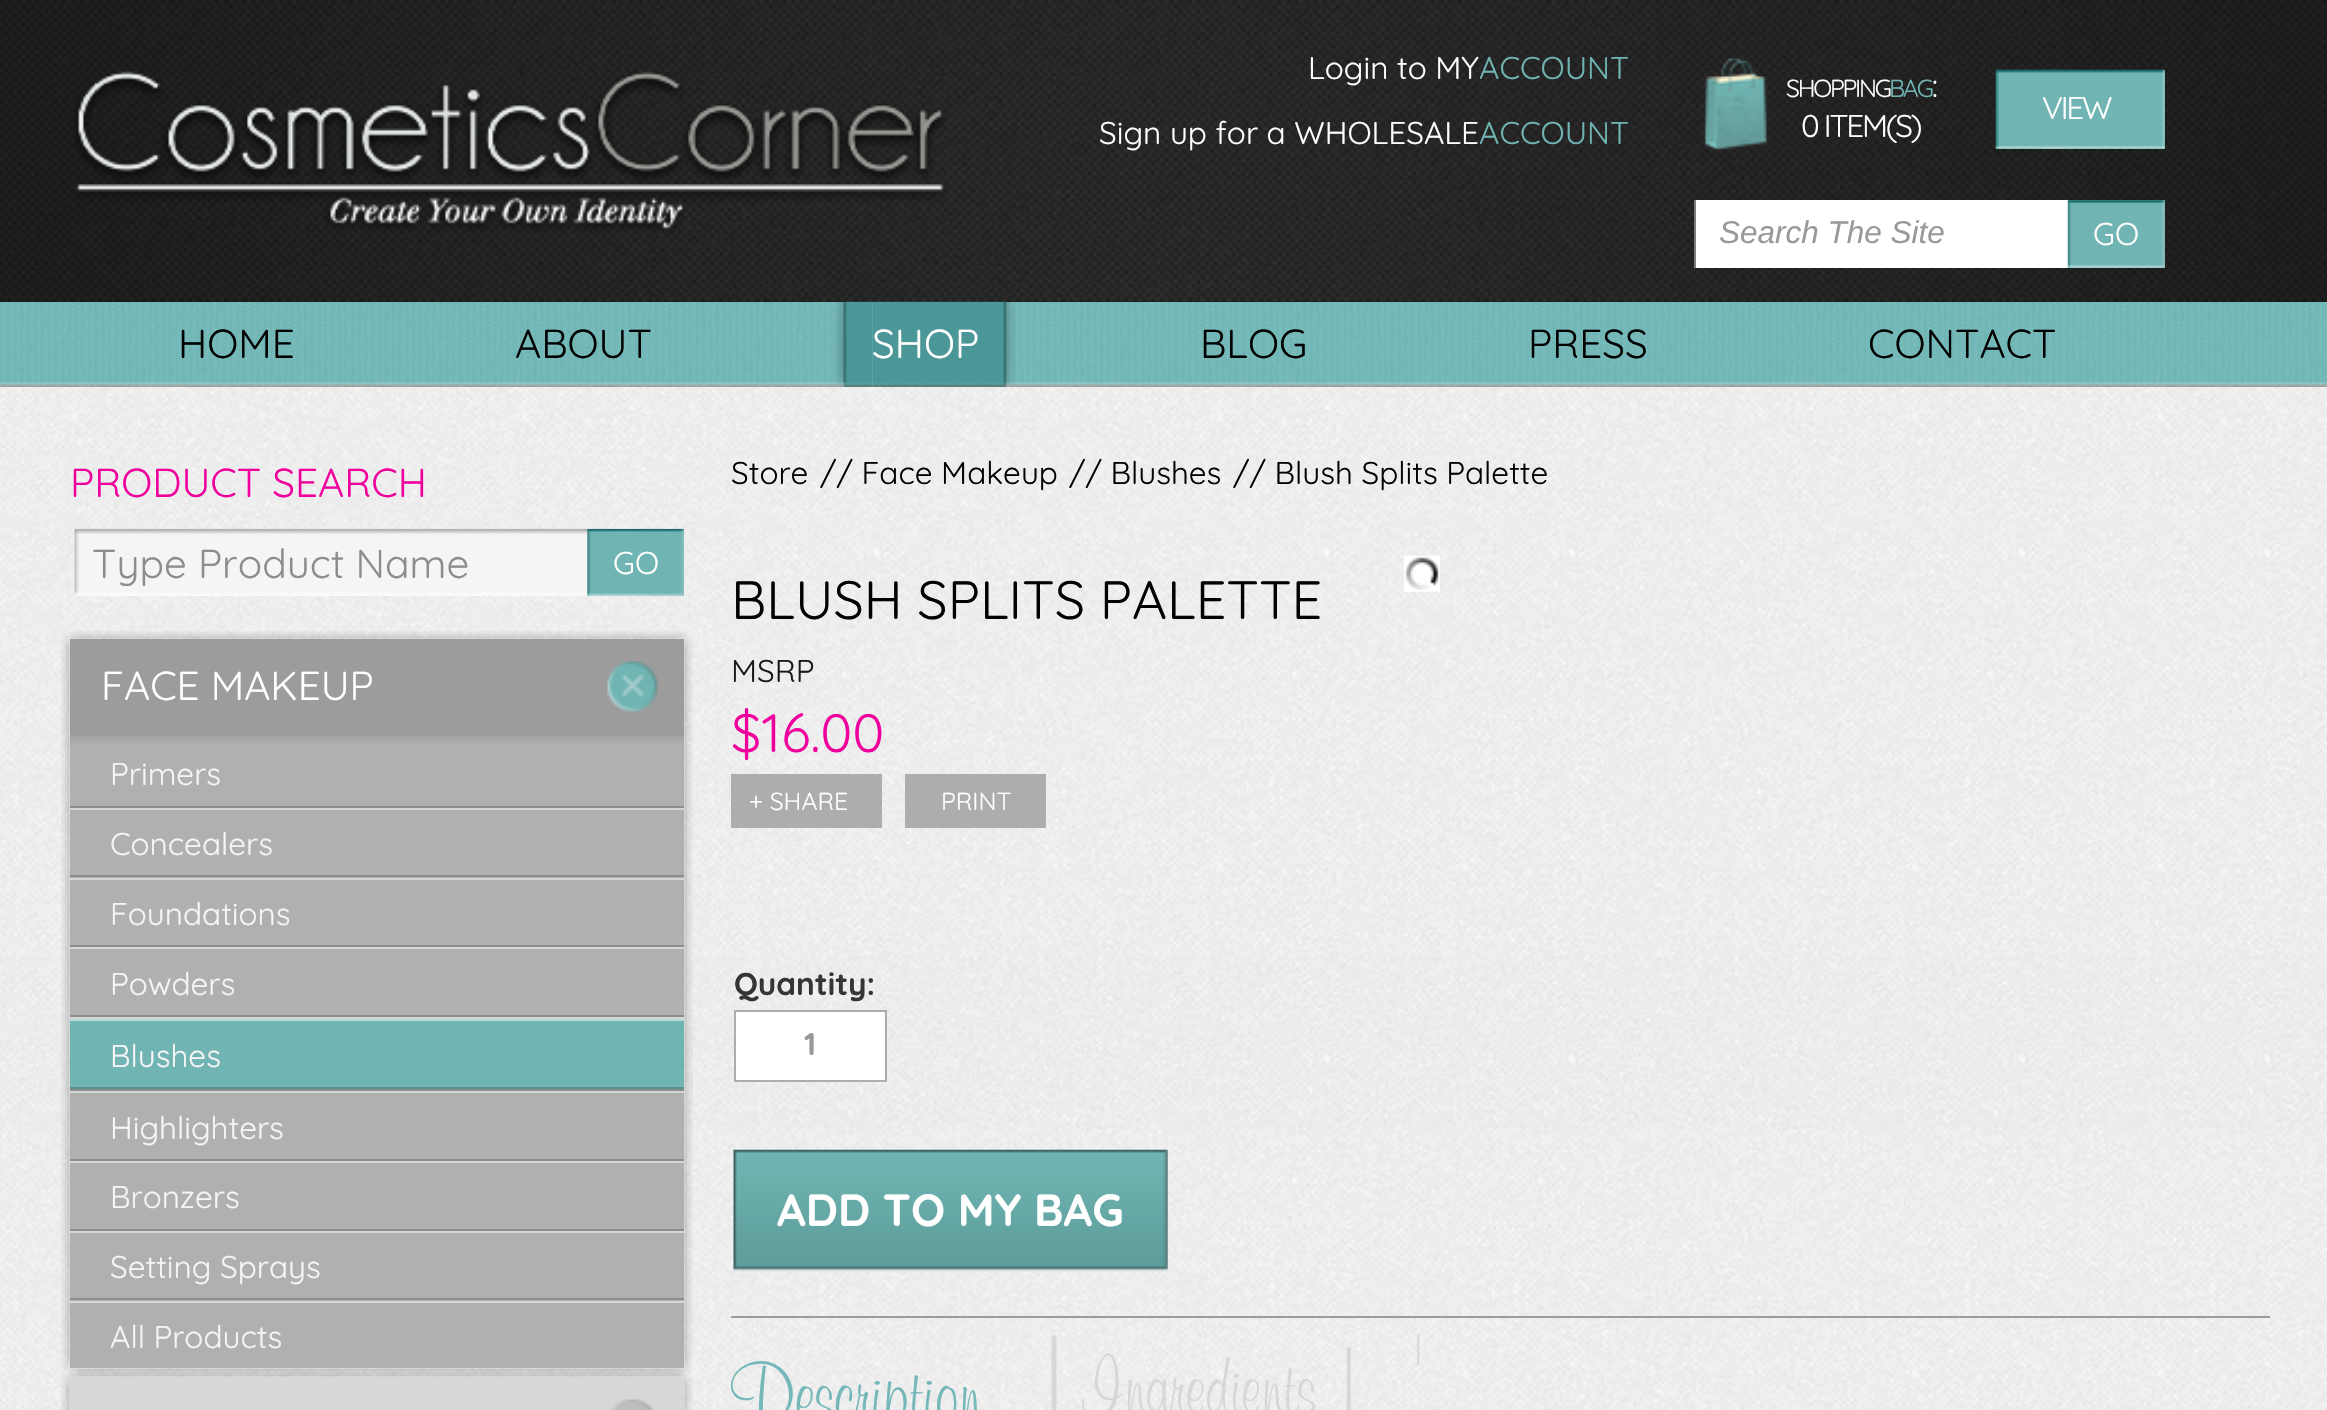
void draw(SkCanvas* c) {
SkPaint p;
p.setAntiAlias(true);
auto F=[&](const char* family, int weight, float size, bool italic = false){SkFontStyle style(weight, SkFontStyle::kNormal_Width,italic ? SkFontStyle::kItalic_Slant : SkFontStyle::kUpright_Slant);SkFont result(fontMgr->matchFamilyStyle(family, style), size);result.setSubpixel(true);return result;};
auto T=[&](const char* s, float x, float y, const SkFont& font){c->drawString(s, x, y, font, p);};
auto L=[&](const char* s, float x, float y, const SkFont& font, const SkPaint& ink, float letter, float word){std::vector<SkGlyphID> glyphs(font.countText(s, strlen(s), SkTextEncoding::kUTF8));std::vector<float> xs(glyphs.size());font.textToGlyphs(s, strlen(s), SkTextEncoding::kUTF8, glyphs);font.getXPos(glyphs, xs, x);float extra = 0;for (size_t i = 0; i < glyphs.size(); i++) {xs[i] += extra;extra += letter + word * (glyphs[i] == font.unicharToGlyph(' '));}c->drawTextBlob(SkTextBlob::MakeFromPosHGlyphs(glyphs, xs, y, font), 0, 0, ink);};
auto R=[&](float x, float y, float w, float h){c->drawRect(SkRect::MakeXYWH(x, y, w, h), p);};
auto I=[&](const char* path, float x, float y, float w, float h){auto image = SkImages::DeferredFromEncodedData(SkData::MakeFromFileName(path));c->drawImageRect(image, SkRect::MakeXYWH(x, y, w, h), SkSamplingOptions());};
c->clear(0xffffffff);
I("1.png",0,387,2327,1023);
p.setColor(0xff151515);
R(0,301,2327,1);
I("2.png",0,0,2327,302);
I("3.png",73,71,872,163);
auto f1 = F("Quicksand",400,31.5);
p.setColor(0xffffffff);
T("Login to MY",1308,79,f1);
p.setColor(0xff70b5b3);
T("ACCOUNT",1479,79,f1);
p.setColor(0xffffffff);
T("Sign up for a WHOLESALE",1099,144,f1);
p.setColor(0xff70b5b3);
T("ACCOUNT",1479,144,f1);
I("4.png",1703,58,67,93);
auto f2 = F("Quicksand",400,24.75);
p.setColor(0xffffffff);
L("SHOPPING",1786,97,f2,p,-2.25,0);
p.setColor(0xff70b5b3);
L("BAG",1889,97,f2,p,-2.25,0);
p.setColor(0xffffffff);
L(":",1932,97,f1,p,-2.25,0);
L("0 ITEM(S)",1801,137,f1,p,-2.25,0);
p.setColor(0xff6baeac);
R(1996,70,169,79);
I("5.png",1995,69,69,80);
I("6.png",2043,69,122,80);
p.setColor(0xffffffff);
L("VIEW",2042,119,f1,p,-2.25,0);
R(1696,200,372,68);
p.setColor(0xff7c7c7c);
R(1694,200,2,68);
auto f3 = F("Liberation Sans",400,31.5,true);
p.setColor(0xff999999);
T("Search The Site",1719,243,f3);
p.setColor(0xff70b5b3);
R(2068,200,97,68);
I("7.png",2067,200,98,68);
p.setColor(0xffffffff);
T("GO",2093,245,f1);
I("8.png",0,302,2327,85);
auto f4 = F("Quicksand",400,40.5);
p.setColor(0xff020202);
T("HOME",178,358,f4);
T("ABOUT",515,358,f4);
I("9.png",834,301,40,86);
I("10.png",873,301,143,86);
p.setColor(0xffffffff);
T("SHOP",872,358,f4);
p.setColor(0xff020202);
T("BLOG",1200,358,f4);
T("PRESS",1528,358,f4);
T("CONTACT",1868,358,f4);
p.setColor(0xffef009d);
T("PRODUCT SEARCH",70,497,f4);
p.setColor(0xfff6f5f5);
R(74,529,1,67);
I("11.png",74,528,514,68);
p.setColor(0xff8d8d8d);
T("Type Product Name",92,578,f4);
I("12.png",587,528,97,69);
p.setColor(0xffffffff);
T("GO",613,574,f1);
I("17.png",61,1356,632,20);
I("14.png",61,650,632,707);
I("13.png",61,631,632,20);
p.setColor(0xff9c9c9c);
R(70,639,614,97);
I("15.png",607,661,51,51);
p.setColor(0xffffffff);
T("FACE MAKEUP",101,700,f4);
p.setColor(0xffb0b0b0);
R(70,736,614,632);
I("16.png",70,736,614,8);
p.setColor(0xff8d8d8d);
R(70,806,614,2);
p.setColor(0xfff6f5f5);
T("Primers",110,785,f1);
p.setColor(0xffd6d6d6);
R(70,808,614,2);
p.setColor(0xff8d8d8d);
R(70,875,614,2);
p.setColor(0xfff6f5f5);
T("Concealers",110,855,f1);
p.setColor(0xffd6d6d6);
R(70,878,614,2);
p.setColor(0xff8d8d8d);
R(70,945,614,2);
p.setColor(0xfff6f5f5);
T("Foundations",110,925,f1);
p.setColor(0xffd6d6d6);
R(70,947,614,2);
p.setColor(0xff8d8d8d);
R(70,1015,614,2);
p.setColor(0xfff6f5f5);
T("Powders",110,995,f1);
p.setColor(0xffd6d6d6);
R(70,1017,614,2);
p.setColor(0xff8d8d8d);
R(70,1089,614,2);
p.setColor(0xff70b5b3);
R(70,1021,614,66);
p.setColor(0xffb6d8d7);
R(70,1019,614,2);
p.setColor(0xff5a918f);
R(70,1087,614,2);
p.setColor(0xfff6f5f5);
T("Blushes",110,1067,f1);
p.setColor(0xffd6d6d6);
R(70,1091,614,2);
p.setColor(0xff8d8d8d);
R(70,1159,614,2);
p.setColor(0xfff6f5f5);
T("Highlighters",110,1139,f1);
p.setColor(0xffd6d6d6);
R(70,1161,614,2);
p.setColor(0xff8d8d8d);
R(70,1229,614,2);
p.setColor(0xfff6f5f5);
T("Bronzers",110,1208,f1);
p.setColor(0xffd6d6d6);
R(70,1231,614,2);
p.setColor(0xff8d8d8d);
R(70,1298,614,2);
p.setColor(0xfff6f5f5);
T("Setting Sprays",110,1278,f1);
p.setColor(0xffd6d6d6);
R(70,1301,614,2);
p.setColor(0xfff6f5f5);
T("All Products",110,1348,f1);
I("20.png",61,1388,632,22);
I("18.png",61,1369,632,20);
p.setColor(0xffd7d7d7);
R(70,1377,614,33);
I("19.png",611,1399,43,11);
p.setColor(0xff020202);
T("Store",731,484,f1);
T("// Face Makeup",820,484,f1);
T("// Blushes",1069,484,f1);
T("// Blush Splits Palette",1233,484,f1);
I("21.png",1404,555,36,37);
auto f5 = F("Quicksand",400,54);
T("BLUSH SPLITS PALETTE",731,619,f5);
p.setColor(0xff191919);
T("MSRP",731,682,f1);
p.setColor(0xffef009d);
T("$16.00",731,752,f5);
p.setColor(0xffadadad);
R(731,774,151,54);
p.setColor(0xffffffff);
T("+ SHARE",749,810,f2);
p.setColor(0xffadadad);
R(905,774,141,54);
p.setColor(0xffffffff);
T("PRINT",941,810,f2);
auto f6 = F("Quicksand",700,31.5);
p.setColor(0xff353535);
T("Quantity:",734,995,f6);
p.setColor(0xffffffff);
c->drawRect(SkRect::MakeXYWH(735,1011,151,70),p);
p.setStroke(true);
p.setStrokeWidth(2);
p.setColor(0xffadadad);
c->drawRect(SkRect::MakeXYWH(735,1011,151,70),p);
p.setStroke(false);
p.setColor(0xff999999);
T("1",804,1055,f6);
I("22.png",733,1149,435,123);
auto f7 = F("Quicksand",700,45);
p.setColor(0xffffffff);
T("ADD TO MY BAG",777,1226,f7);
p.setColor(0xff9c9c9c);
R(731,1316,1539,2);
auto f8 = F("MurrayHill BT",400,83);
p.setColor(0xff75b8b9);
T("Description",731,1418,f8);
auto f9 = F("MurrayHill BT",400,108);
p.setColor(0xffd7d7d7);
T("|",1027,1418,f9);
T("Ingredients",1081,1411,f8);
T("|",1328,1411,f8);
T("|",1415,1359,f1);
}
